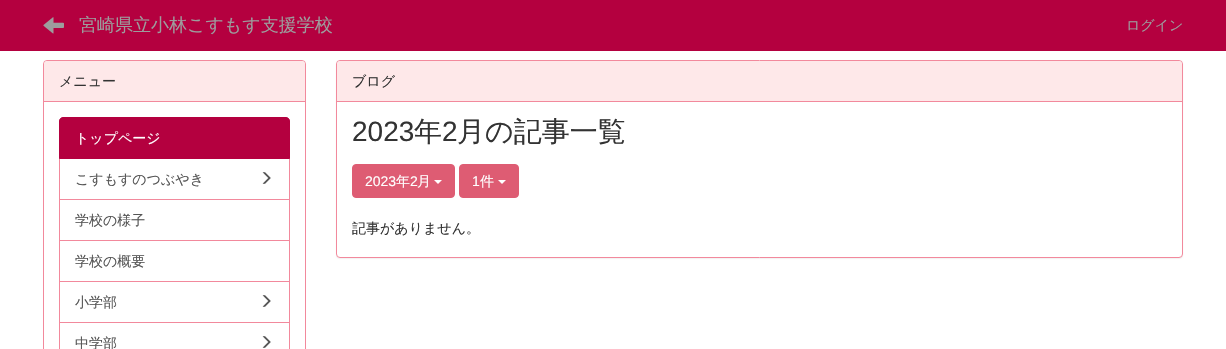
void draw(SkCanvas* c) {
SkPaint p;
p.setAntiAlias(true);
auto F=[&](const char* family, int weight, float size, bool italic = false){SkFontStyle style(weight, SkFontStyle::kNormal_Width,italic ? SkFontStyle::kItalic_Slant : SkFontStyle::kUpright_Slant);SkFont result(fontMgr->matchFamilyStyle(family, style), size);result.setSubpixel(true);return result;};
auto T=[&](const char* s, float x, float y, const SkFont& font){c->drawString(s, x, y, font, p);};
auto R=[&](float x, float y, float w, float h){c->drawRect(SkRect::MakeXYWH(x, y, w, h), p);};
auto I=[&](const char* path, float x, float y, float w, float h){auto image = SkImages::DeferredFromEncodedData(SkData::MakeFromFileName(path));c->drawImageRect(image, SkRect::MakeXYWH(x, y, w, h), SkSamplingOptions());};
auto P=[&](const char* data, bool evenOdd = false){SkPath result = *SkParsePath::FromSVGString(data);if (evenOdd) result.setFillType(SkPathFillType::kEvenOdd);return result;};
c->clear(0xffffffff);
p.setColor(0xffb4003f);
R(0,0,1226,51);
I("1.png",43,17,21,17);
auto f1 = F("WenQuanYi Zen Hei",500,18);
p.setColor(0xff9d9d9d);
T("宮崎県立小林こすもす支援学校",79,31,f1);
auto f2 = F("WenQuanYi Zen Hei",500,14);
T("ログイン",1126,30,f2);
p.setStroke(true);
p.setStrokeWidth(1);
p.setColor(0xfff2899c);
c->drawRoundRect(SkRect::MakeXYWH(43.5,60.5,262,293),3.5,3.5,p);
p.setStroke(false);
p.setColor(0xfffee8e9);
c->drawPath(P("M47 61h255c1.5 0 3 1.5 3 3v38h-261v-38c0-1.5 1.5-3 3-3z"),p);
p.setColor(0xfff2899c);
R(44,101,261,1);
p.setColor(0xff333333);
T("メニュー",59,86,f2);
p.setStroke(true);
p.setColor(0xfff2899c);
c->drawRect(SkRect::MakeXYWH(59.5,158.5,230,41),p);
p.setStroke(false);
p.setColor(0xffb4003f);
c->drawPath(P("M63 117.5h223c2 0 3.5 1.5 3.5 3.5v37.5h-230v-37.5c0-2 1.5-3.5 3.5-3.5z"),p);
p.setStroke(true);
c->drawPath(P("M63 117.5h223c2 0 3.5 1.5 3.5 3.5v37.5h-230v-37.5c0-2 1.5-3.5 3.5-3.5z"),p);
p.setStroke(false);
p.setColor(0xffffffff);
T("トップページ",75,143,f2);
p.setColor(0xff555555);
T("こすもすのつぶやき",75,184,f2);
I("2.png",262,172,9,12);
p.setStroke(true);
p.setColor(0xfff2899c);
c->drawRect(SkRect::MakeXYWH(59.5,199.5,230,41),p);
p.setStroke(false);
p.setColor(0xff555555);
T("学校の様子",75,225,f2);
p.setStroke(true);
p.setColor(0xfff2899c);
c->drawRect(SkRect::MakeXYWH(59.5,240.5,230,41),p);
p.setStroke(false);
p.setColor(0xff555555);
T("学校の概要",75,266,f2);
p.setStroke(true);
p.setColor(0xfff2899c);
c->drawRect(SkRect::MakeXYWH(59.5,281.5,230,41),p);
p.setStroke(false);
p.setColor(0xff555555);
T("小学部",75,307,f2);
I("2.png",262,295,9,12);
p.setStroke(true);
p.setColor(0xfff2899c);
c->drawRect(SkRect::MakeXYWH(59.5,322.5,230,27),p);
p.setStroke(false);
p.setColor(0xff555555);
T("中学部",75,348,f2);
I("2.png",262,336,9,12);
p.setColor(0x0d000000);
p.setMaskFilter(SkMaskFilter::MakeBlur(kNormal_SkBlurStyle, .5));
c->drawRoundRect(SkRect::MakeXYWH(336,61,847,198),4,4,p);
p.setMaskFilter(nullptr);
p.setColor(0xffffffff);
c->drawRoundRect(SkRect::MakeXYWH(336.5,60.5,846,197),3.5,3.5,p);
p.setStroke(true);
p.setColor(0xfff2899c);
c->drawRoundRect(SkRect::MakeXYWH(336.5,60.5,846,197),3.5,3.5,p);
p.setStroke(false);
p.setColor(0xfffee8e9);
c->drawPath(P("M340 61h839c1.5 0 3 1.5 3 3v38h-845v-38c0-1.5 1.5-3 3-3z"),p);
p.setColor(0xfff2899c);
R(337,101,845,1);
p.setColor(0xff333333);
T("ブログ",352,86,f2);
auto f3 = F("Liberation Sans",400,28);
T("2023",352,141,f3);
auto f4 = F("WenQuanYi Zen Hei",500,28);
T("年",414,141,f4);
T("2",442,141,f3);
T("月の記事一覧",457,141,f4);
p.setColor(0xffde5c73);
c->drawRoundRect(SkRect::MakeXYWH(352.5,164.5,102,33),3.5,3.5,p);
p.setStroke(true);
c->drawRoundRect(SkRect::MakeXYWH(352.5,164.5,102,33),3.5,3.5,p);
auto f5 = F("Liberation Sans",400,14);
p.setStroke(false);
p.setColor(0xffffffff);
T("2023",365,186,f5);
T("年",396,186,f2);
T("2",410,186,f5);
T("月",417,186,f2);
c->drawPath(P("M434 180h8l-4 4z"),p);
p.setColor(0xffde5c73);
c->drawRoundRect(SkRect::MakeXYWH(459.5,164.5,59,33),3.5,3.5,p);
p.setStroke(true);
c->drawRoundRect(SkRect::MakeXYWH(459.5,164.5,59,33),3.5,3.5,p);
p.setStroke(false);
p.setColor(0xffffffff);
T("1",472,186,f5);
T("件",480,186,f2);
c->drawPath(P("M498 180h8l-4 4z"),p);
p.setColor(0xff333333);
T("記事がありません。",352,233,f2);
}
